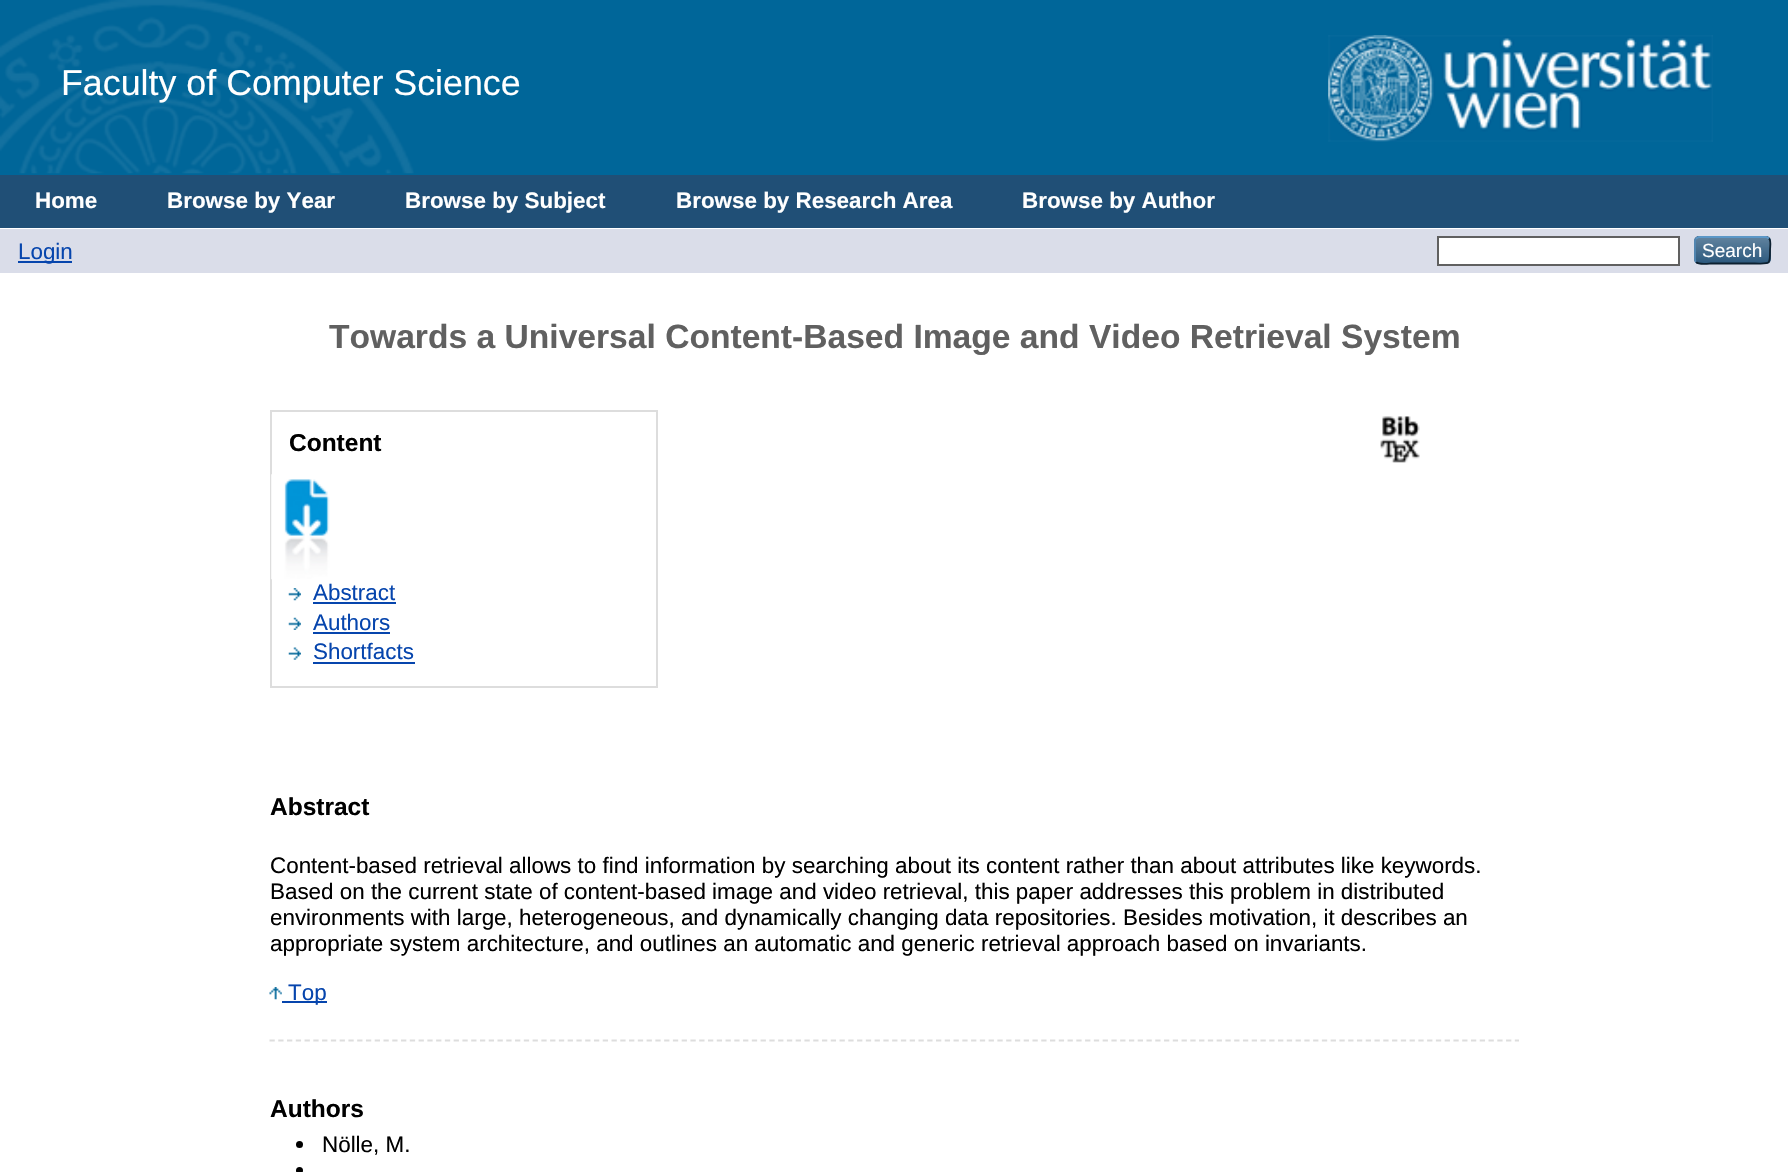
void draw(SkCanvas* c) {
SkPaint p;
p.setAntiAlias(true);
auto F=[&](const char* family, int weight, float size, bool italic = false){SkFontStyle style(weight, SkFontStyle::kNormal_Width,italic ? SkFontStyle::kItalic_Slant : SkFontStyle::kUpright_Slant);SkFont result(fontMgr->matchFamilyStyle(family, style), size);result.setSubpixel(true);return result;};
auto T=[&](const char* s, float x, float y, const SkFont& font){c->drawString(s, x, y, font, p);};
auto R=[&](float x, float y, float w, float h){c->drawRect(SkRect::MakeXYWH(x, y, w, h), p);};
auto Q=[&](float x, float y, float w, float h, float radius){c->drawRoundRect(SkRect::MakeXYWH(x, y, w, h), radius, radius, p);};
auto I=[&](const char* path, float x, float y, float w, float h){auto image = SkImages::DeferredFromEncodedData(SkData::MakeFromFileName(path));c->drawImageRect(image, SkRect::MakeXYWH(x, y, w, h), SkSamplingOptions());};
auto P=[&](const char* data, bool evenOdd = false){SkPath result = *SkParsePath::FromSVGString(data);if (evenOdd) result.setFillType(SkPathFillType::kEvenOdd);return result;};
c->clear(0xffffffff);
p.setColor(0xff006699);
R(0,0,1788,175);
I("1.png",0,0,414,174);
auto f1 = F("Liberation Sans",400,35.8);
p.setColor(0xffffffff);
T("Faculty of Computer Science",61,95,f1);
I("2.png",1328,35,385,107);
p.setColor(0xff204f76);
R(0,175,1788,53);
auto f2 = F("Liberation Sans",700,22.4);
p.setColor(0xffffffff);
T("Home",35,208,f2);
T("Browse by Year",167,208,f2);
T("Browse by Subject",405,208,f2);
T("Browse by Research Area",676,208,f2);
T("Browse by Author",1022,208,f2);
p.setColor(0xffdadde9);
R(0,229,1788,44);
p.setColor(0xff0645ad);
R(18,261,54,2);
auto f3 = F("Liberation Sans",400,22.4);
T("Login",18,259,f3);
p.setColor(0xffffffff);
c->drawRect(SkRect::MakeXYWH(1438,237,241,28),p);
p.setStroke(true);
p.setStrokeWidth(2);
p.setColor(0xff606060);
c->drawRect(SkRect::MakeXYWH(1438,237,241,28),p);
p.setStroke(false);
p.setColor(0xff1f4f76);
Q(1694,236,77,28,5);
I("3.png",1694,236,77,28);
p.setStroke(true);
p.setStrokeWidth(1.8);
p.setColor(0xff5b97c7);
c->drawPath(P("M1696 238.5l3-1.5h67l3 1.5"),p);
p.setColor(0xff0d2131);
c->drawPath(P("M1769 238.5c2.5 2.5 1 8.5 1 11.5c0 15.5 .5 13.5-15.5 13.5h-44c-1 0-11.5 1.5-14.5-1.5"),p);
p.setColor(0xff5287b3);
c->drawPath(P("M1696 262c-.5-.5-1-2-1-3v-17.5c0-1 .5-2.5 1-3"),p);
auto f4 = F("Liberation Sans",400,19);
p.setStroke(false);
p.setColor(0xffffffff);
T("Search",1702,257,f4);
auto f5 = F("Liberation Sans",700,33.6);
p.setColor(0xff606060);
T("Towards a Universal Content-Based Image and Video Retrieval System",329,348,f5);
p.setStroke(true);
p.setStrokeWidth(2);
p.setColor(0xffdddddd);
c->drawRect(SkRect::MakeXYWH(271,411,386,276),p);
auto f6 = F("Liberation Sans",700,24.5);
p.setStroke(false);
p.setColor(0xff000000);
T("Content",289,451,f6);
I("4.png",271,474,59,106);
I("5.png",288,588,13,13);
p.setColor(0xff0645ad);
T("Abstract",313,600,f3);
R(313,602,83,2);
I("6.png",288,617,13,13);
T("Authors",313,630,f3);
R(313,632,77,2);
I("7.png",288,647,13,13);
T("Shortfacts",313,659,f3);
R(313,662,102,2);
I("8.png",1380,416,40,47);
p.setStroke(true);
p.setStrokeWidth(1.8);
p.setColor(0xffdddddd);
p.setPathEffect(SkDashPathEffect::Make({{5.25f,3.52f}}, 0));
c->drawPath(P("M269.5 1040.5h1249.5"),p);
p.setPathEffect(nullptr);
p.setStroke(false);
p.setColor(0xff000000);
T("Abstract",270,815,f6);
T("Content-based retrieval allows to find information by searching about its content rather than about attributes like keywords.",270,873,f3);
T("Based on the current state of content-based image and video retrieval, this paper addresses this problem in distributed",270,899,f3);
T("environments with large, heterogeneous, and dynamically changing data repositories. Besides motivation, it describes an",270,925,f3);
T("appropriate system architecture, and outlines an automatic and generic retrieval approach based on invariants.",270,951,f3);
I("9.png",269,987,13,13);
p.setColor(0xff0645ad);
R(282,1001,45,2);
T("Top",288,1000,f3);
p.setColor(0xff000000);
T("Authors",270,1117,f6);
c->drawCircle(299.5,1144.5,3.5,p);
T("Nölle, M.",322,1152,f3);
c->drawCircle(299.5,1170.5,3.5,p);
}
